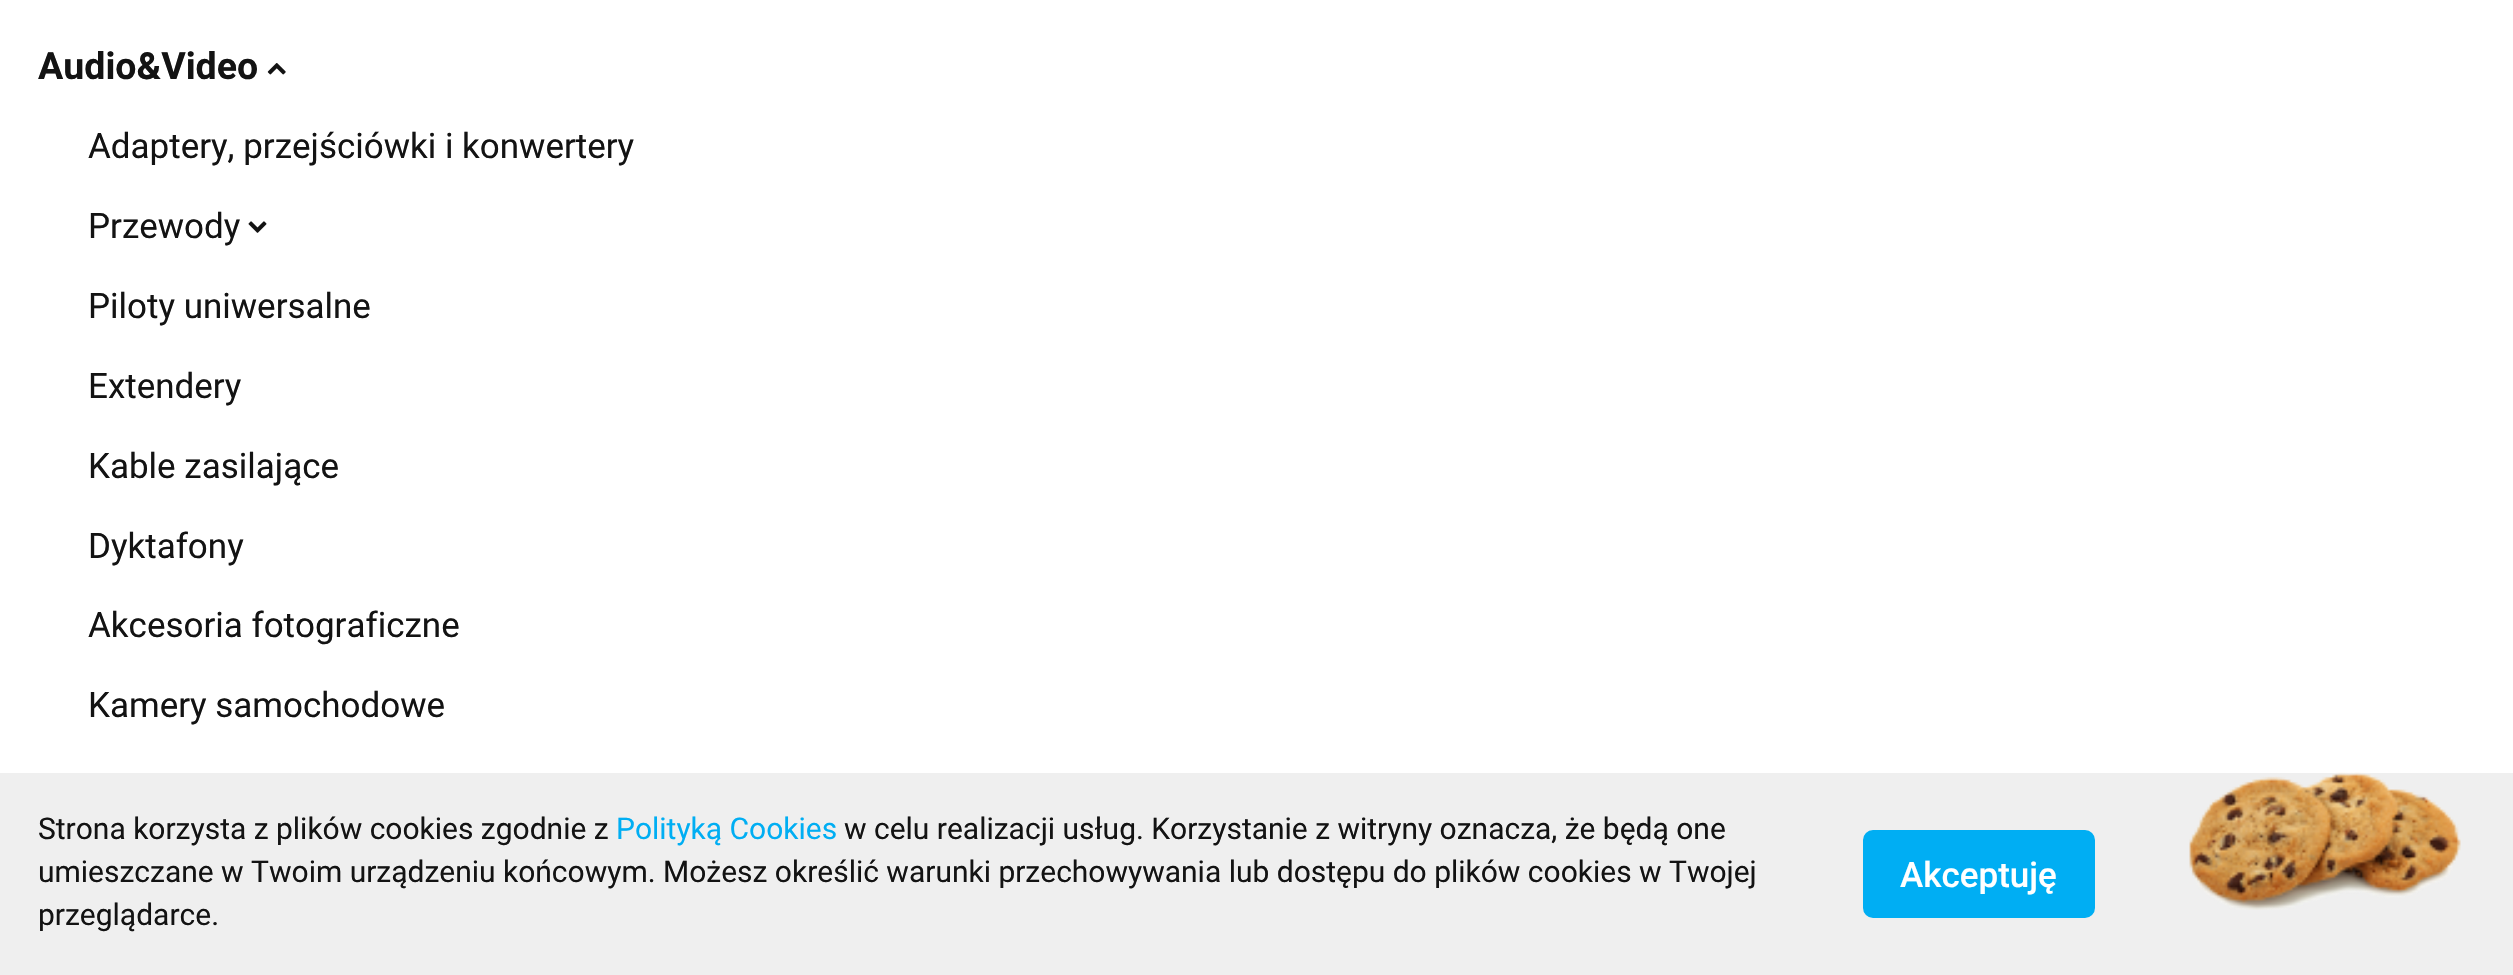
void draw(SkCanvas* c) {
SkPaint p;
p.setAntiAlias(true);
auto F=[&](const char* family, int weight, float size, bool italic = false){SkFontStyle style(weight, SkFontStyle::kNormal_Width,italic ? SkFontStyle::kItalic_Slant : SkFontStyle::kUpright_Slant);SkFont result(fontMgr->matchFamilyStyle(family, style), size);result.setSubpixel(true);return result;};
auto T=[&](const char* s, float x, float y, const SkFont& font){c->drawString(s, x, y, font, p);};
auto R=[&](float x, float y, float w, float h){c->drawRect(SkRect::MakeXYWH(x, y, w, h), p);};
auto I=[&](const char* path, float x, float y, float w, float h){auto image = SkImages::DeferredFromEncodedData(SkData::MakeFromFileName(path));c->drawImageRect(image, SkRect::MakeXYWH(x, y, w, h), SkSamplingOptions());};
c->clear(0xffffffff);
auto f1 = F("Roboto",700,37.5);
p.setColor(0xff131313);
T("Audio&Video",38,79,f1);
I("1.png",267,63,19,12);
auto f2 = F("Roboto",400,35);
T("Adaptery, przejściówki i konwertery",88,158,f2);
T("Przewody",88,238,f2);
I("2.png",248,221,19,12);
T("Piloty uniwersalne",88,318,f2);
T("Extendery",88,398,f2);
T("Kable zasilające",88,478,f2);
T("Dyktafony",88,558,f2);
T("Akcesoria fotograficzne",88,637,f2);
T("Kamery samochodowe",88,717,f2);
p.setColor(0xffefefef);
R(0,773,2513,202);
auto f3 = F("Roboto",400,30);
p.setColor(0xff131313);
T("Strona korzysta z plików cookies zgodnie z",38,839,f3);
p.setColor(0xff00aef3);
T("Polityką Cookies",616,839,f3);
p.setColor(0xff131313);
T("w celu realizacji usług. Korzystanie z witryny oznacza, że będą one",844,839,f3);
T("umieszczane w Twoim urządzeniu końcowym. Możesz określić warunki przechowywania lub dostępu do plików cookies w Twojej",38,882,f3);
T("przeglądarce.",38,925,f3);
p.setColor(0xff00aef3);
c->drawRoundRect(SkRect::MakeXYWH(1867,834,224,80),6,6,p);
p.setStroke(true);
p.setStrokeWidth(8);
c->drawRoundRect(SkRect::MakeXYWH(1867,834,224,80),6,6,p);
auto f4 = F("Roboto",500,35);
p.setStroke(false);
p.setColor(0xffffffff);
T("Akceptuję",1900,887,f4);
I("3.png",2189,772,272,138);
}
